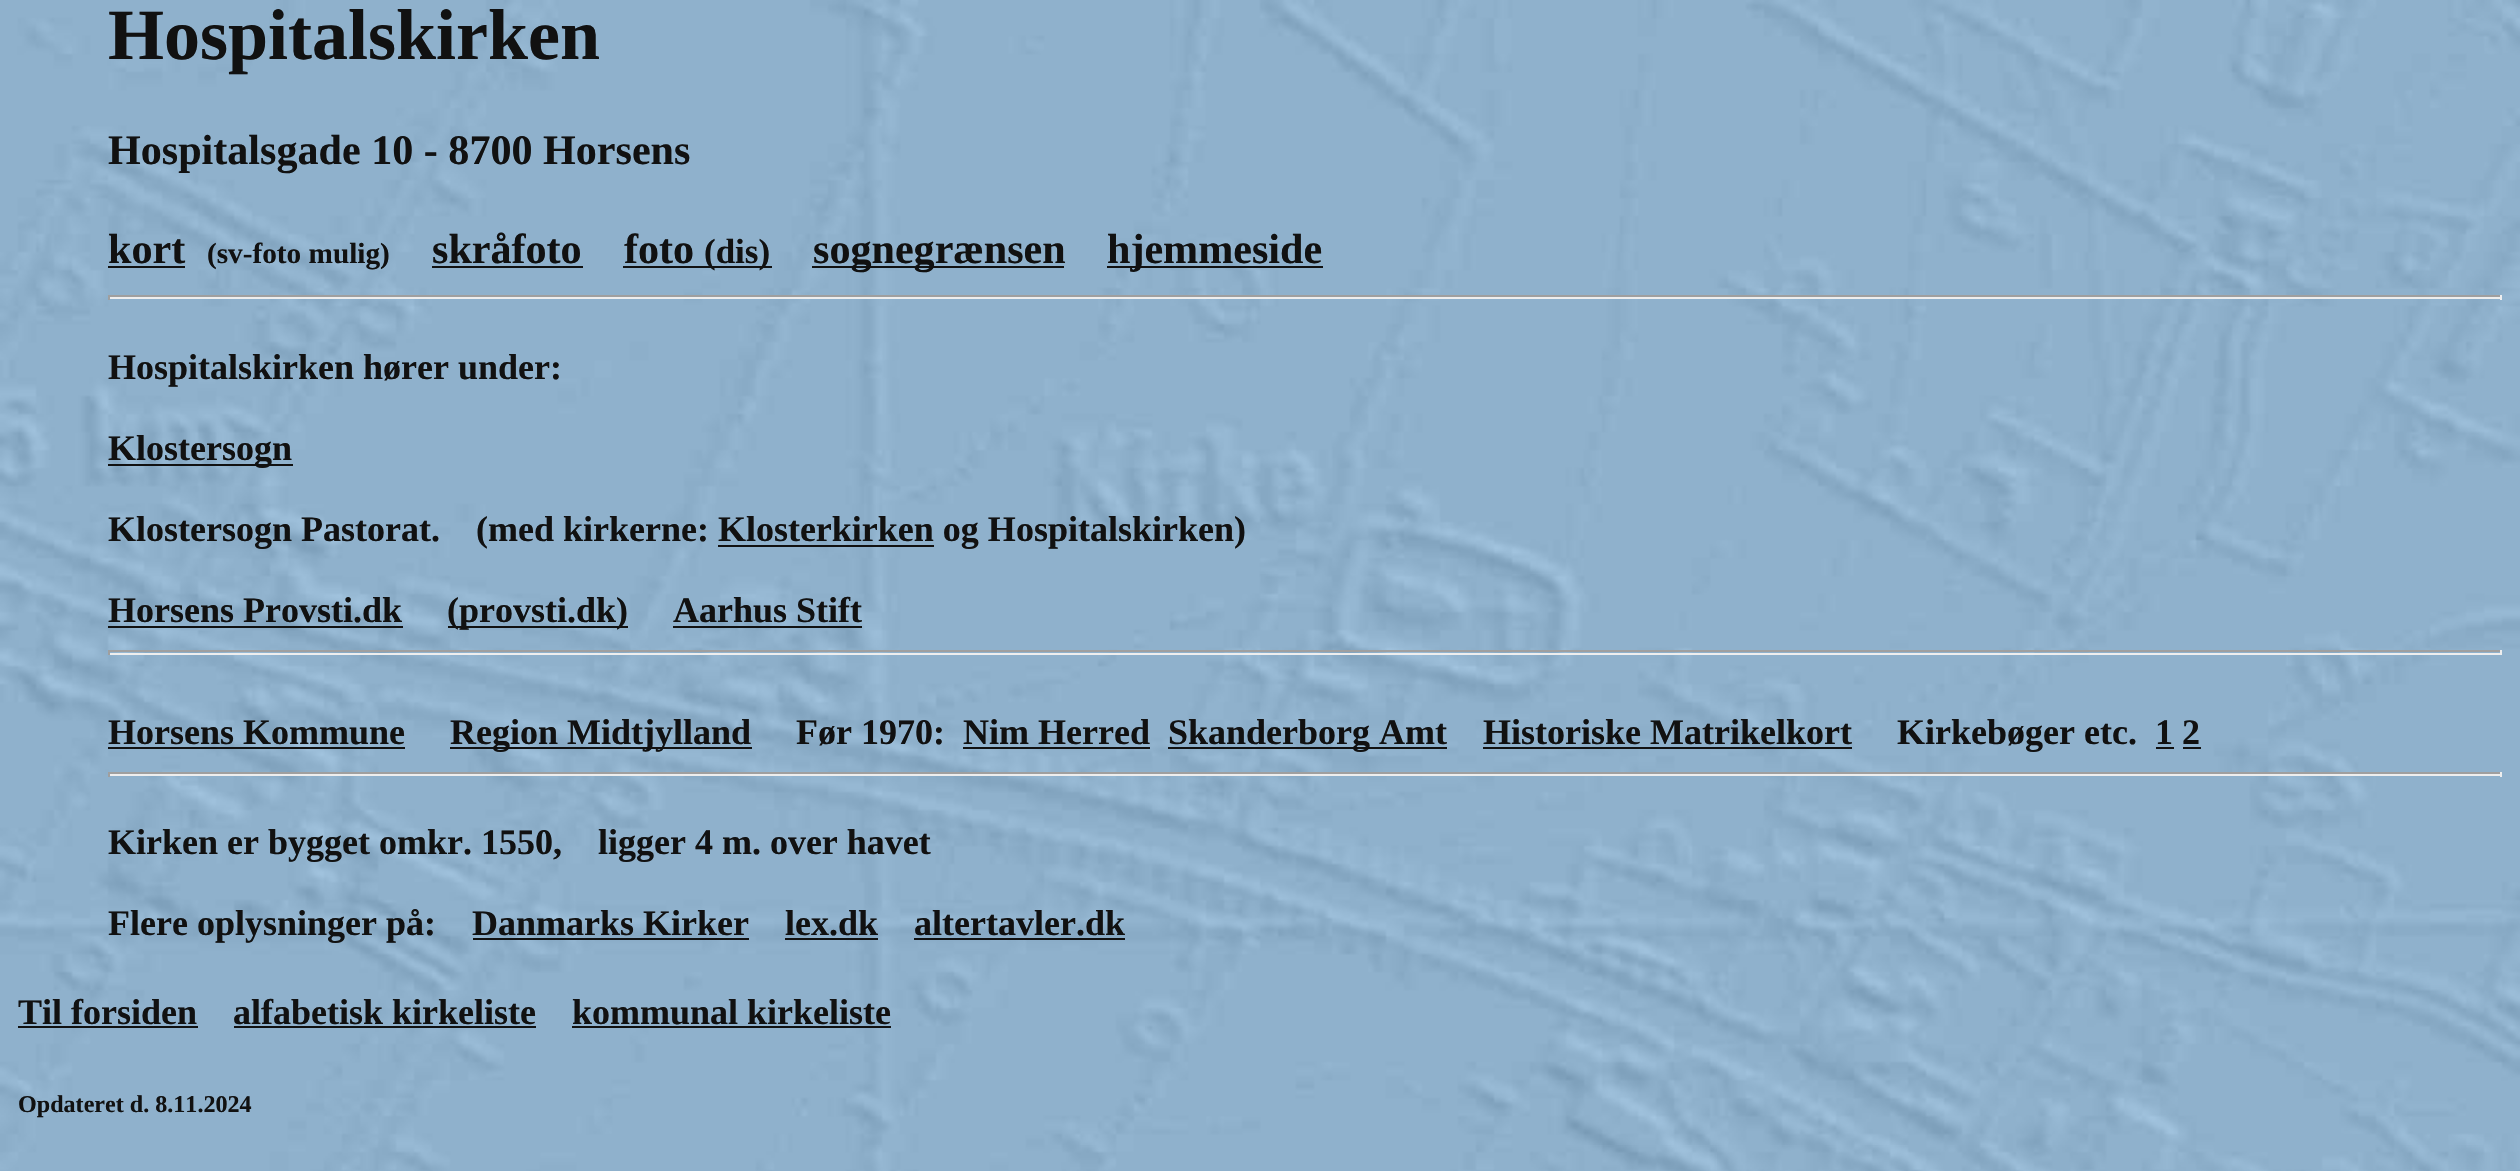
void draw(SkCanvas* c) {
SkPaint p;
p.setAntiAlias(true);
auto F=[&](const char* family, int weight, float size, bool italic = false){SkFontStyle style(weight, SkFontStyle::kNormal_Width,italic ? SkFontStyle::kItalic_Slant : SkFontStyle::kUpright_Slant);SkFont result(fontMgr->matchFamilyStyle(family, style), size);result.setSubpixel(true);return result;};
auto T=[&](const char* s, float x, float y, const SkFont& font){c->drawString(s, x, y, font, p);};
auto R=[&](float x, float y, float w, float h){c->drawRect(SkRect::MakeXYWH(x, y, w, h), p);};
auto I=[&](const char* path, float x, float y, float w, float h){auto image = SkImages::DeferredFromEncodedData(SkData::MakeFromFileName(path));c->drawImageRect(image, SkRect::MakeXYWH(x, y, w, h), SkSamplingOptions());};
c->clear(0xffffffff);
I("1.png",0,0,2520,1171);
auto f1 = F("Liberation Serif",700,72);
p.setColor(0xff111111);
T("Hospitalskirken",108,59,f1);
auto f2 = F("Liberation Serif",700,42.1);
T("Hospitalsgade 10 - 8700 Horsens",108,164,f2);
T("kort",108,263,f2);
R(108,266,77,2);
auto f3 = F("Liberation Serif",700,29.25);
T("(sv-foto mulig)",207,263,f3);
T("skråfoto",432,263,f2);
R(432,266,151,2);
T("foto",624,263,f2);
R(623,266,149,2);
auto f4 = F("Liberation Serif",700,35);
T("(dis)",704,263,f4);
R(812,266,252,2);
T("sognegrænsen",813,263,f2);
R(1107,266,216,2);
T("hjemmeside",1107,263,f2);
p.setColor(0xff9f9f9f);
R(108,295,2394,2);
p.setColor(0xffeeeeee);
R(2500,295,2,5);
R(108,297,2394,2);
p.setColor(0xff9f9f9f);
R(108,295,2,5);
auto f5 = F("Liberation Serif",700,36);
p.setColor(0xff111111);
T("Hospitalskirken hører under:",108,379,f5);
R(108,464,185,2);
T("Klostersogn",108,460,f5);
T("Klostersogn Pastorat.    (med kirkerne: Klosterkirken og Hospitalskirken)",108,541,f5);
R(718,545,216,2);
T("Horsens Provsti.dk",108,622,f5);
R(108,626,295,2);
R(448,626,180,2);
T("(provsti.dk)",447,622,f5);
T("Aarhus Stift",673,622,f5);
R(673,626,189,2);
p.setColor(0xff9f9f9f);
R(108,650,2394,2);
p.setColor(0xffeeeeee);
R(2500,650,2,5);
R(108,653,2394,2);
p.setColor(0xff9f9f9f);
R(108,650,2,5);
p.setColor(0xff111111);
T("Horsens Kommune",108,744,f5);
R(108,747,297,2);
R(450,747,302,2);
T("Region Midtjylland",450,744,f5);
T("Før 1970:",796,744,f5);
T("Nim Herred",963,744,f5);
R(963,747,187,2);
R(1168,747,279,2);
T("Skanderborg Amt",1168,744,f5);
T("Historiske Matrikelkort",1483,744,f5);
R(1483,747,369,2);
T("Kirkebøger etc.",1897,744,f5);
T("1 2",2155,744,f5);
R(2156,747,18,2);
R(2183,747,18,2);
p.setColor(0xff9f9f9f);
R(108,772,2394,2);
p.setColor(0xffeeeeee);
R(2500,772,2,5);
R(108,774,2394,2);
p.setColor(0xff9f9f9f);
R(108,772,2,5);
p.setColor(0xff111111);
T("Kirken er bygget omkr. 1550,    ligger 4 m. over havet",108,854,f5);
T("Flere oplysninger på:",108,935,f5);
T("Danmarks Kirker",472,935,f5);
R(473,938,276,2);
T("lex.dk",785,935,f5);
R(785,938,93,2);
T("altertavler.dk",914,935,f5);
R(914,938,211,2);
T("Til forsiden",18,1024,f5);
R(18,1026,180,2);
T("alfabetisk kirkeliste",233,1024,f5);
R(234,1026,302,2);
T("kommunal kirkeliste",572,1024,f5);
R(572,1026,319,2);
auto f6 = F("Liberation Serif",700,24.1);
T("Opdateret d. 8.11.2024",18,1112,f6);
}
